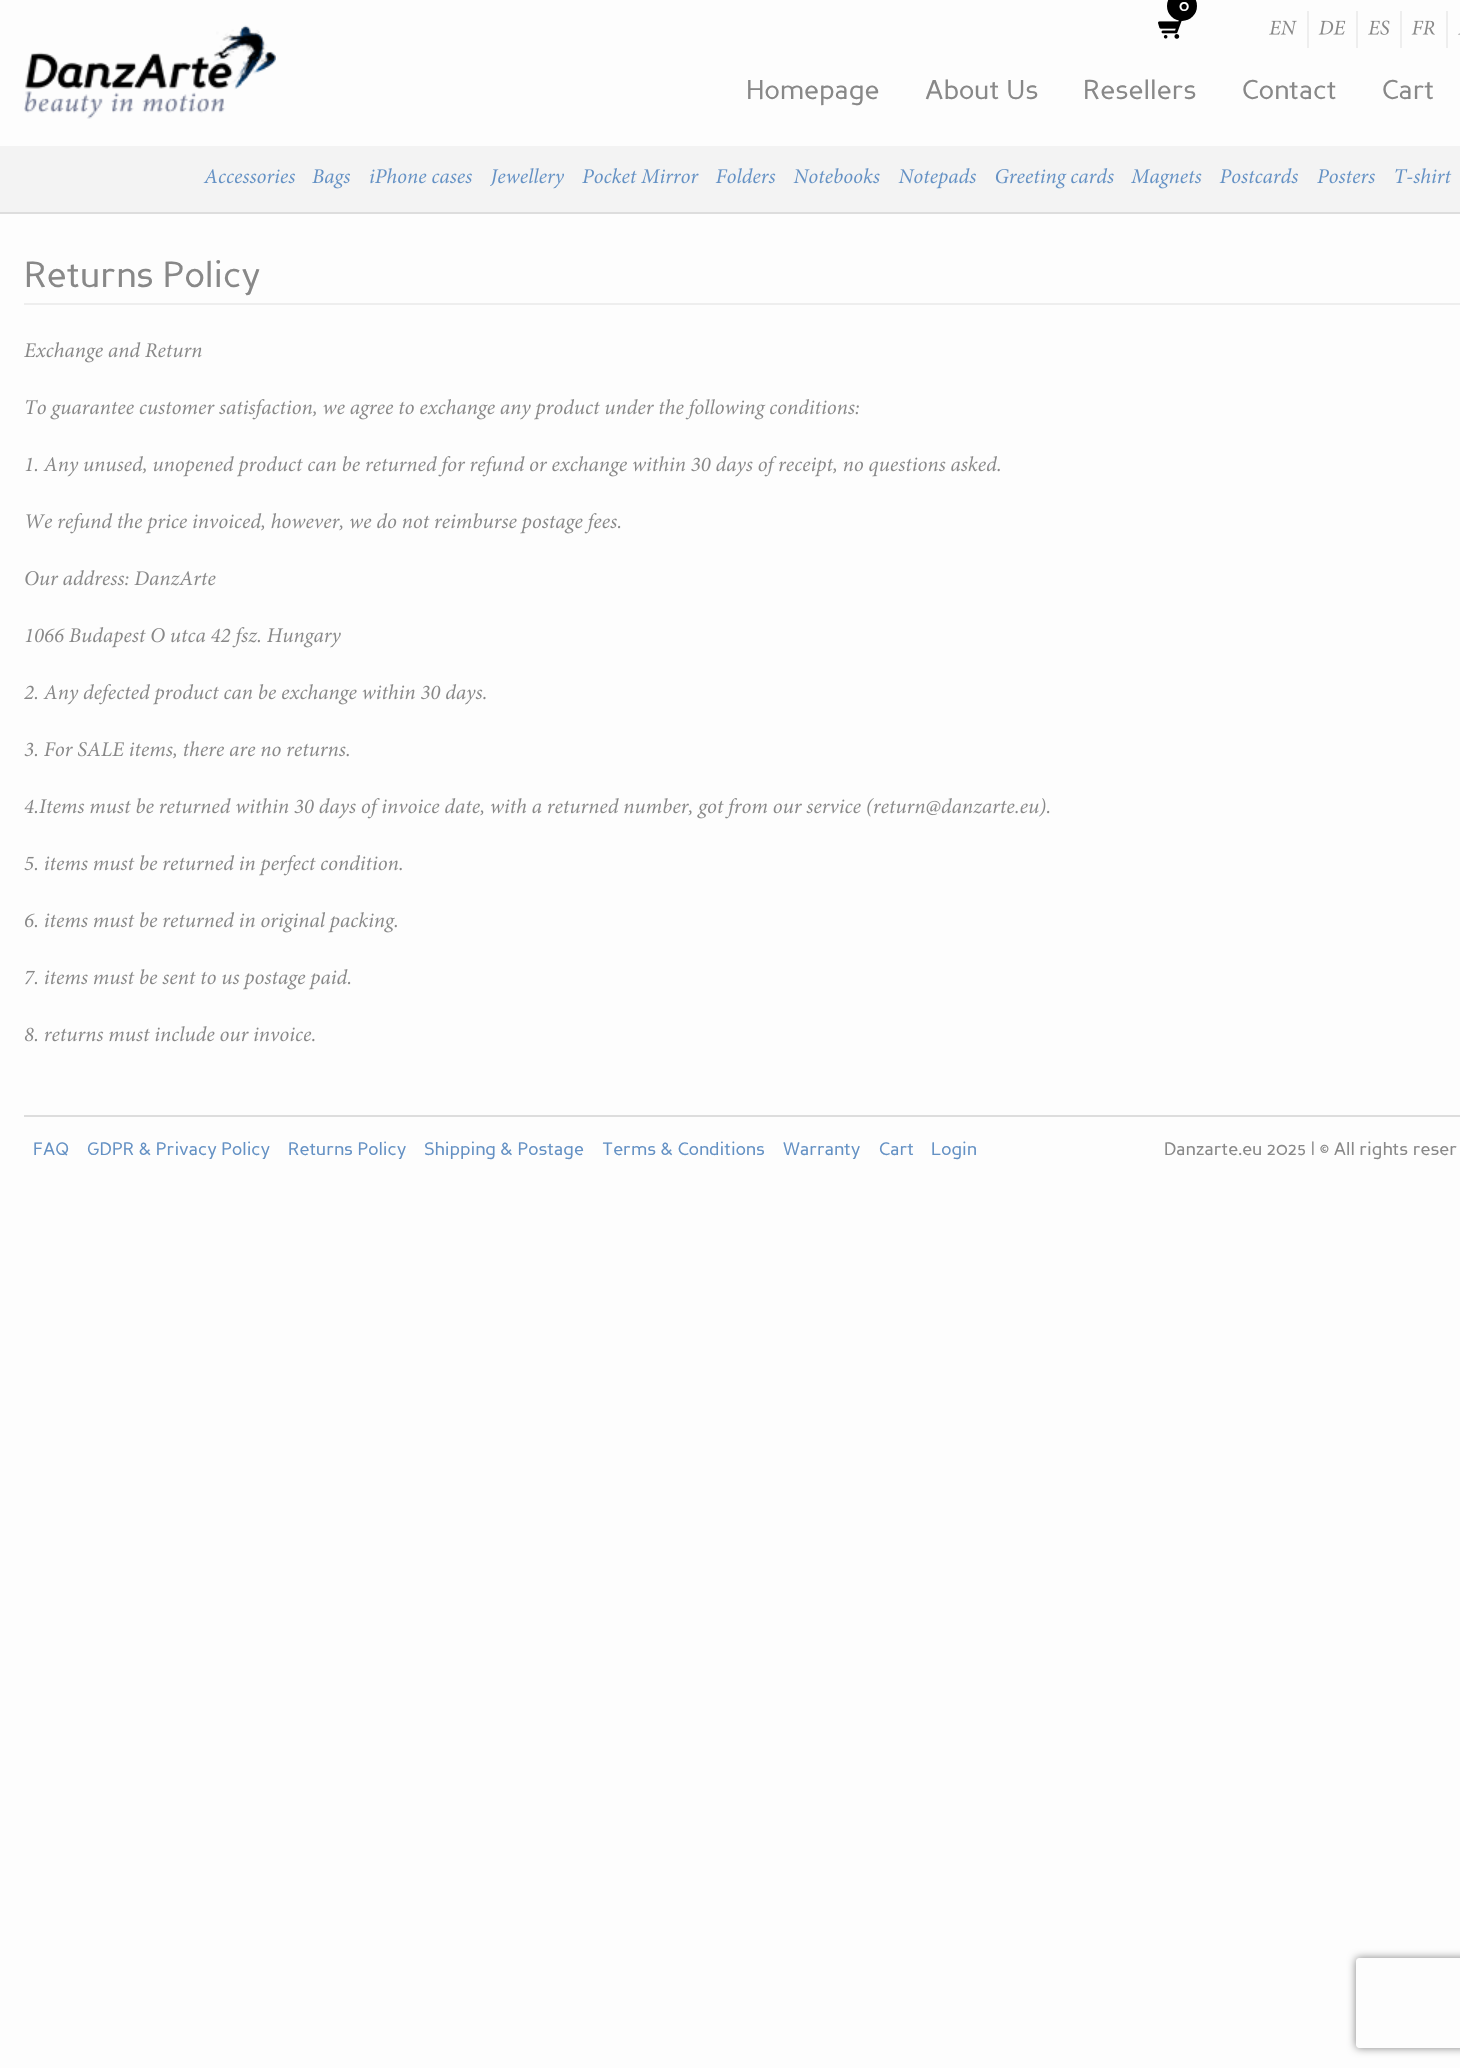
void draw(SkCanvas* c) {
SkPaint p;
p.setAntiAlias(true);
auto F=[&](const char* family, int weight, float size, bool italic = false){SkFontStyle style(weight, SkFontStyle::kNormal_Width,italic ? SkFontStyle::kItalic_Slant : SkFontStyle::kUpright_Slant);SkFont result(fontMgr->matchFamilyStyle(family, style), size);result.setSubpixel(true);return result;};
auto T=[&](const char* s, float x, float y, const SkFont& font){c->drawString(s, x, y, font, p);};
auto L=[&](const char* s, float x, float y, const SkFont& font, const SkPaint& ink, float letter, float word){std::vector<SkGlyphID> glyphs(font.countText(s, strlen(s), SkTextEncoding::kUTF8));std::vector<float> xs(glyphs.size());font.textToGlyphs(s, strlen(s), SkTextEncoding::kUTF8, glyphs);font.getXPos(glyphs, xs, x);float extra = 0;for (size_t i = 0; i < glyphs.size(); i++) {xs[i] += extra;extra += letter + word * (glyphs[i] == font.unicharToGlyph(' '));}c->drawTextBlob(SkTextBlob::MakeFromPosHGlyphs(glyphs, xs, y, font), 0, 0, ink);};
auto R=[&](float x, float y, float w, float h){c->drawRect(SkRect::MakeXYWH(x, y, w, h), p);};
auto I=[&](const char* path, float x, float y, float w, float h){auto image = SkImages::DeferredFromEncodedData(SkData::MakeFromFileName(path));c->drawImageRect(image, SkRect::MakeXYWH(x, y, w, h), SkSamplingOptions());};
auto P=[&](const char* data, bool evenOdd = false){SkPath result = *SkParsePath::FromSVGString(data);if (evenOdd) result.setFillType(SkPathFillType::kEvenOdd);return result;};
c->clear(0xfffdfdfd);
p.setColor(0xffdddddd);
R(0,212,1460,2);
I("1.png",1158,19,30,20);
p.setColor(0xff000000);
c->drawCircle(1182,6,15,p);
auto f1 = F("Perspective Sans",700,15);
p.setColor(0xffffffff);
L("0",1179,11,f1,p,-3,0);
I("2.png",24,25,252,94);
p.setColor(0xffeeeeee);
R(1307,11,2,37);
I("3.png",1269,20,28,15);
R(1356,11,2,37);
I("4.png",1318,20,28,15);
R(1400,11,2,37);
I("5.png",1368,20,22,15);
R(1446,11,2,37);
I("6.png",1411,20,24,15);
I("7.png",1458,33,2,2);
auto f2 = F("Perspective Sans",400,27);
p.setColor(0xff888888);
T("Homepage",746,99,f2);
T("About Us",925,99,f2);
T("Resellers",1083,99,f2);
T("Contact",1242,99,f2);
T("Cart",1382,99,f2);
p.setColor(0xfff3f3f3);
R(0,146,1460,66);
I("8.png",203,169,92,15);
I("9.png",312,169,38,20);
I("10.png",370,168,102,16);
I("11.png",490,168,74,21);
I("12.png",582,168,117,16);
I("13.png",715,168,61,16);
I("14.png",793,168,87,16);
I("15.png",898,168,78,21);
I("16.png",995,168,119,21);
I("17.png",1131,169,71,20);
I("18.png",1219,168,79,16);
I("19.png",1317,169,58,15);
I("20.png",1395,168,57,16);
p.setColor(0xffeeeeee);
R(24,303,1436,2);
auto f3 = F("Perspective Sans",400,36);
p.setColor(0xff888888);
T("Returns Policy",24,287,f3);
I("21.png",24,342,178,21);
I("22.png",26,399,833,21);
I("23.png",25,456,975,21);
I("24.png",26,513,595,21);
I("25.png",25,570,191,16);
I("26.png",25,627,316,21);
I("27.png",24,684,462,21);
I("28.png",24,741,325,18);
I("29.png",24,798,1026,21);
I("30.png",24,855,378,21);
I("31.png",25,912,372,21);
I("32.png",25,969,326,21);
I("33.png",24,1026,291,16);
p.setColor(0xffdddddd);
R(24,1115,1436,2);
auto f4 = F("Perspective Sans",400,18);
p.setColor(0xff6491c4);
T("FAQ",33,1155,f4);
T("GDPR & Privacy Policy",87,1155,f4);
T("Returns Policy",288,1155,f4);
T("Shipping & Postage",424,1155,f4);
T("Terms & Conditions",602,1155,f4);
T("Warranty",783,1155,f4);
T("Cart",879,1155,f4);
T("Login",931,1155,f4);
p.setColor(0xff888888);
T("Danzarte.eu 2025 | © All rights reser",1164,1155,f4);
c->save();
c->clipPath(P("M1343 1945h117v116h-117zm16 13h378c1.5 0 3 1.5 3 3v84c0 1.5-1.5 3-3 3h-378c-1.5 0-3-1.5-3-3v-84c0-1.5 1.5-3 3-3z",true),true);
p.setColor(0xff808080);
p.setMaskFilter(SkMaskFilter::MakeBlur(kNormal_SkBlurStyle, 4));
c->drawRoundRect(SkRect::MakeXYWH(1356,1958,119,90),3,3,p);
p.setMaskFilter(nullptr);
c->restore();
}
